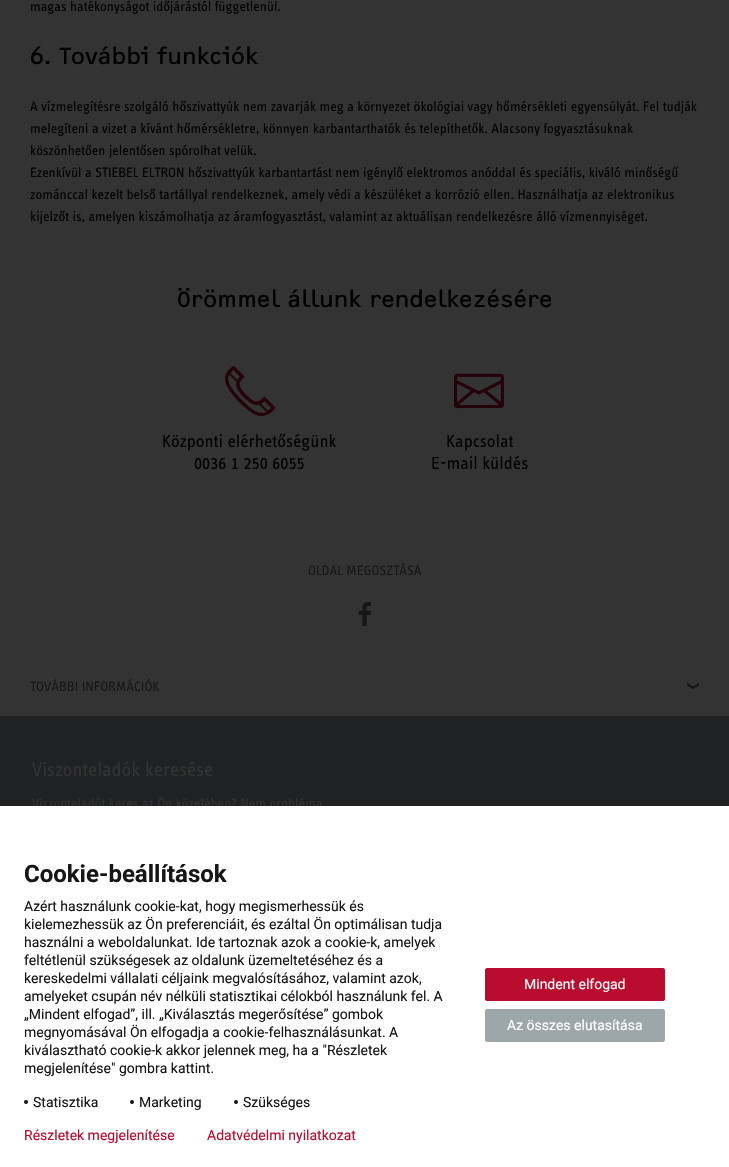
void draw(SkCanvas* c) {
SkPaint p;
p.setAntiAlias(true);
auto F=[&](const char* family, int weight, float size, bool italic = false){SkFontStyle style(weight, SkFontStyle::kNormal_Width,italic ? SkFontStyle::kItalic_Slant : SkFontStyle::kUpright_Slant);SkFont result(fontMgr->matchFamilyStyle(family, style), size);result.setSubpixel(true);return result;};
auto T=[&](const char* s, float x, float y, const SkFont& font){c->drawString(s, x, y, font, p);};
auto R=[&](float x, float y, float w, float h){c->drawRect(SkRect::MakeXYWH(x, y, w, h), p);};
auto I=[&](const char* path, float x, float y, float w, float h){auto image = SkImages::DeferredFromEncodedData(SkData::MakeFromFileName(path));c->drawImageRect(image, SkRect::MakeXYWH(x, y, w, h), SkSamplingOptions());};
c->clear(0xff333333);
auto f1 = F("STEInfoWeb",400,14);
p.setColor(0xff000000);
T("magas hatékonyságot időjárástól függetlenül.",30,11,f1);
auto f2 = F("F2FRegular",400,24);
T("6. További funkciók",30,64,f2);
T("A vízmelegítésre szolgáló hőszivattyúk nem zavarják meg a környezet ökológiai vagy hőmérsékleti egyensúlyát. Fel tudják",30,111,f1);
T("melegíteni a vizet a kívánt hőmérsékletre, könnyen karbantarthatók és telepíthetők. Alacsony fogyasztásuknak",30,133,f1);
T("köszönhetően jelentősen spórolhat velük.",30,155,f1);
T("Ezenkívül a STIEBEL ELTRON hőszivattyúk karbantartást nem igénylő elektromos anóddal és speciális, kiváló minőségű",30,177,f1);
T("zománccal kezelt belső tartállyal rendelkeznek, amely védi a készüléket a korrózió ellen. Használhatja az elektronikus",30,199,f1);
T("kijelzőt is, amelyen kiszámolhatja az áramfogyasztást, valamint az aktuálisan rendelkezésre álló vízmennyiséget.",30,221,f1);
T("Örömmel állunk rendelkezésére",177,307,f2);
I("1.png",225,366,50,50);
auto f3 = F("STEInfoWeb",400,18);
T("Központi elérhetőségünk",162,447,f3);
T("0036 1 250 6055",194,469,f3);
I("2.png",454,373,50,36);
T("Kapcsolat",446,447,f3);
T("E-mail küldés",431,469,f3);
p.setColor(0xff161616);
T("OLDAL MEGOSZTÁSA",308,575,f1);
I("3.png",358,602,13,24);
T("TOVÁBBI INFORMÁCIÓK",30,691,f1);
I("4.png",687,682,12,8);
p.setColor(0xff1f2122);
R(0,716,729,90);
auto f4 = F("STEInfoWeb",400,20);
p.setColor(0xff333333);
T("Viszonteladók keresése",32,776,f4);
T("Viszonteladót keres az Ön közelében? Nem probléma",32,808,f1);
p.setColor(0xffffffff);
R(0,806,729,361);
auto f5 = F("Roboto",700,24);
p.setColor(0xff161616);
T("Cookie-beállítások",24,882,f5);
auto f6 = F("Roboto",400,14);
T("Azért használunk cookie-kat, hogy megismerhessük és",24,911,f6);
T("kielemezhessük az Ön preferenciáit, és ezáltal Ön optimálisan tudja",24,929,f6);
T("használni a weboldalunkat. Ide tartoznak azok a cookie-k, amelyek",24,947,f6);
T("feltétlenül szükségesek az oldalunk üzemeltetéséhez és a",24,965,f6);
T("kereskedelmi vállalati céljaink megvalósításához, valamint azok,",24,983,f6);
T("amelyeket csupán név nélküli statisztikai célokból használunk fel. A",24,1001,f6);
T("„Mindent elfogad”, ill. „Kiválasztás megerősítése” gombok",24,1019,f6);
T("megnyomásával Ön elfogadja a cookie-felhasználásunkat. A",24,1037,f6);
T("kiválasztható cookie-k akkor jelennek meg, ha a \"Részletek",24,1055,f6);
T("megjelenítése\" gombra kattint.",24,1073,f6);
p.setColor(0xff131313);
c->drawCircle(26,1102,2,p);
p.setColor(0xff161616);
T("Statisztika",33,1107,f6);
p.setColor(0xff131313);
c->drawCircle(132,1102,2,p);
p.setColor(0xff161616);
T("Marketing",139,1107,f6);
p.setColor(0xff131313);
c->drawCircle(236,1102,2,p);
p.setColor(0xff161616);
T("Szükséges",243,1107,f6);
p.setColor(0xffba0c2f);
c->drawRoundRect(SkRect::MakeXYWH(485.5,968.5,179,32),1.5,1.5,p);
p.setStroke(true);
p.setStrokeWidth(1);
c->drawRoundRect(SkRect::MakeXYWH(485.5,968.5,179,32),1.5,1.5,p);
p.setStroke(false);
p.setColor(0xffffffff);
T("Mindent elfogad",524,989,f6);
p.setColor(0xff9da6a8);
c->drawRoundRect(SkRect::MakeXYWH(485.5,1009.5,179,32),1.5,1.5,p);
p.setStroke(true);
c->drawRoundRect(SkRect::MakeXYWH(485.5,1009.5,179,32),1.5,1.5,p);
p.setStroke(false);
p.setColor(0xffffffff);
T("Az összes elutasítása",507,1030,f6);
p.setColor(0xffba0c2f);
T("Részletek megjelenítése",24,1140,f6);
T("Adatvédelmi nyilatkozat",207,1140,f6);
}
